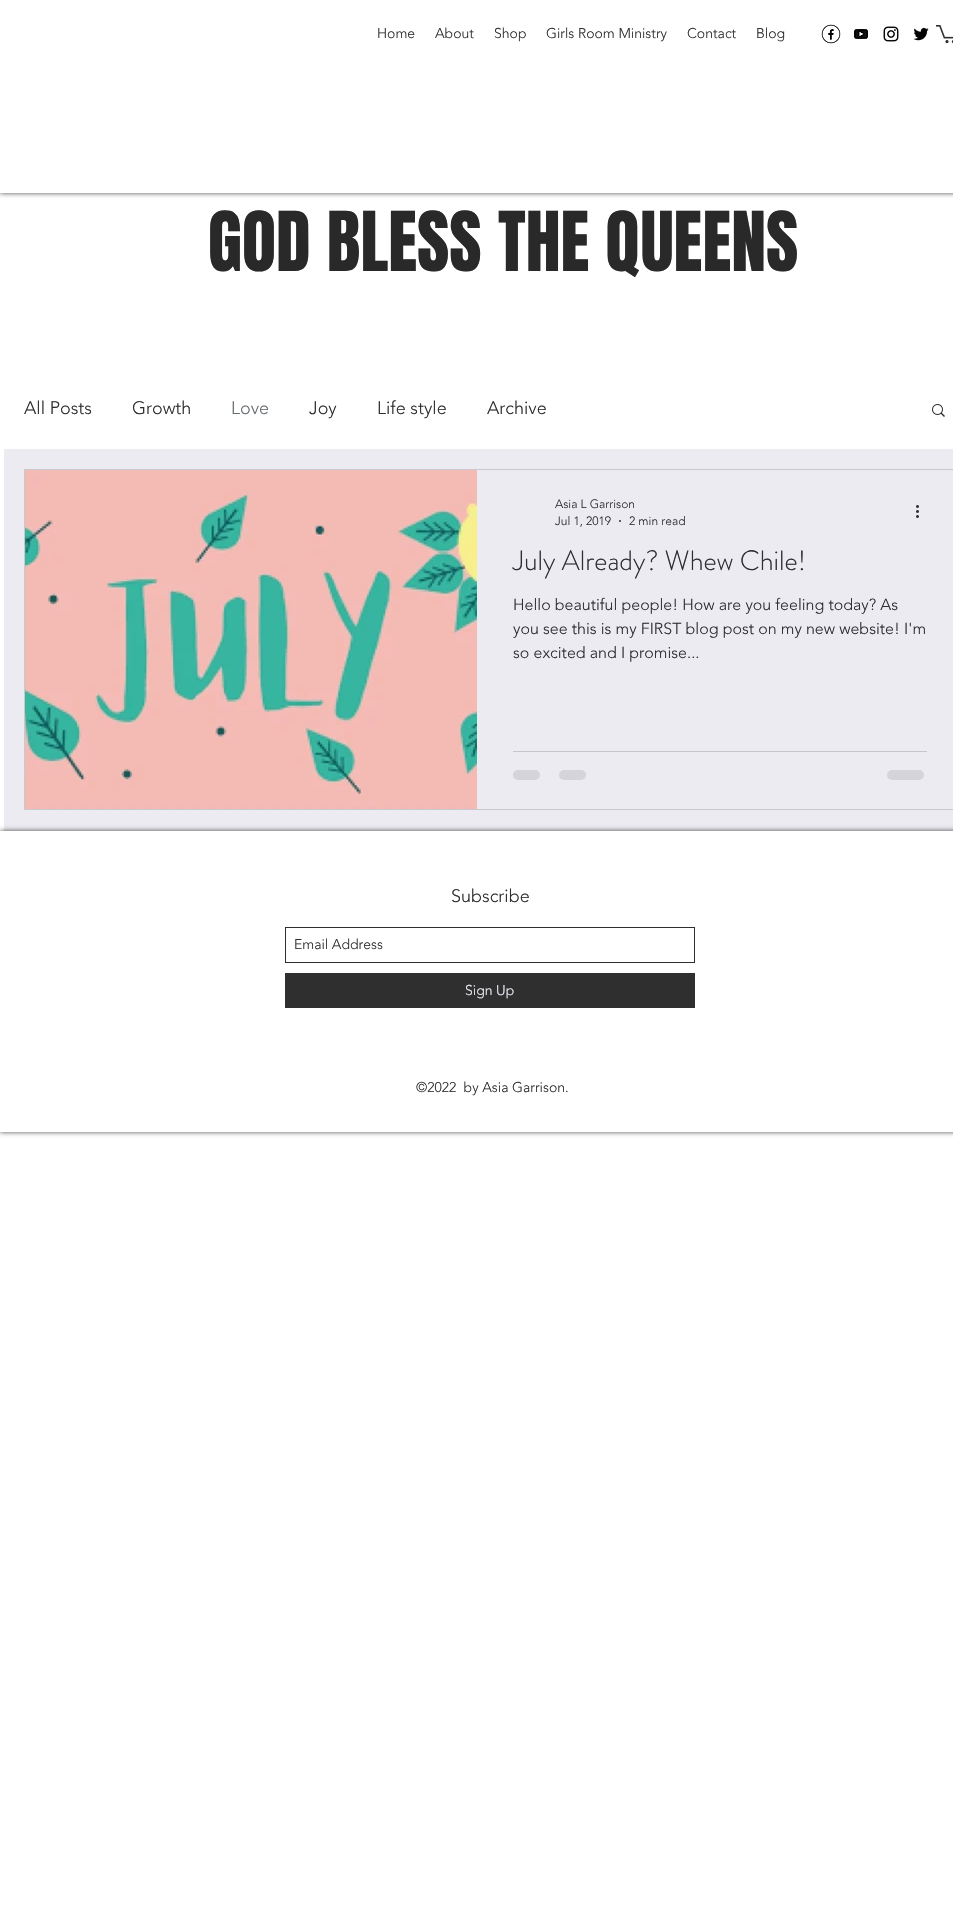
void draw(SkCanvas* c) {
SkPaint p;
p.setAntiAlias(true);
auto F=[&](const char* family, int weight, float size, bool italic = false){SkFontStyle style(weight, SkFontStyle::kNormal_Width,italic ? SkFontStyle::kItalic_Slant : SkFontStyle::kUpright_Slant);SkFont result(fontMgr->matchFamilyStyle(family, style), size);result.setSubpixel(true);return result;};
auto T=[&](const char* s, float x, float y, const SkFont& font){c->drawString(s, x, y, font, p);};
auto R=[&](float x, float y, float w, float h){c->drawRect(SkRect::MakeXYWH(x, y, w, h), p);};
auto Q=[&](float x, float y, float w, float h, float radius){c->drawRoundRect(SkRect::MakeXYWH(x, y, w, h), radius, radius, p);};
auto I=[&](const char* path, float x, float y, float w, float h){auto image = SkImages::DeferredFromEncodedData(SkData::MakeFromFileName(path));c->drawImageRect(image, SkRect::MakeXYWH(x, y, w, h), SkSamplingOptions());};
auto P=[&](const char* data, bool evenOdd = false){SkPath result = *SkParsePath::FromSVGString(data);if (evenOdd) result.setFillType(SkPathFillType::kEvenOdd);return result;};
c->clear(0xffffffff);
c->save();
c->clipRect(SkRect::MakeXYWH(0,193,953,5));
p.setColor(0xb3000000);
p.setMaskFilter(SkMaskFilter::MakeBlur(kNormal_SkBlurStyle, 2.5));
c->drawRect(SkRect::MakeXYWH(0,0,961,193),p);
p.setMaskFilter(nullptr);
c->restore();
auto f1 = F("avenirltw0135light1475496",300,14);
p.setColor(0xff2f2f30);
T("Home",377,38,f1);
T("About",435,38,f1);
T("Shop",494,38,f1);
T("Girls Room Ministry",546,38,f1);
T("Contact",687,38,f1);
T("Blog",756,38,f1);
I("1.png",821,24,20,20);
I("2.png",854,29,14,10);
I("3.png",883,26,16,16);
I("4.png",913,27,16,14);
I("5.png",936,25,17,19);
auto f2 = F("Anton",400,70);
p.setColor(0xff292929);
T("GOD BLESS THE QUEENS",208,271,f2);
p.setColor(0xffedebf2);
R(4,449,949,382);
auto f3 = F("avenirltw0135light1475496",300,18);
p.setColor(0xff2f2f30);
T("All Posts",24,414,f3);
T("Growth",132,414,f3);
p.setColor(0xff676e71);
T("Love",231,414,f3);
p.setColor(0xff2f2f30);
T("Joy",309,414,f3);
T("Life style",377,414,f3);
T("Archive",487,414,f3);
I("6.png",932,404,13,13);
p.setStroke(true);
p.setStrokeWidth(1);
p.setColor(0xffcac8ce);
c->drawRect(SkRect::MakeXYWH(24.5,469.5,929,340),p);
I("7.png",25,470,452,339);
auto f4 = F("avenirltw0135light1475496",300,12);
p.setStroke(false);
p.setColor(0xff2f2f30);
T("Asia L Garrison",555,508,f4);
T("Jul 1, 2019",555,525,f4);
c->drawCircle(620,521,1,p);
T("2 min read",629,525,f4);
I("8.png",916,505,3,13);
auto f5 = F("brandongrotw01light",300,28);
T("July Already? Whew Chile!",513,570,f5);
auto f6 = F("avenirltw0135light1475496",300,16);
T("Hello beautiful people! How are you feeling today? As",513,610,f6);
T("you see this is my FIRST blog post on my new website! I'm",513,634,f6);
T("so excited and I promise...",513,658,f6);
p.setColor(0xffc7c5cb);
R(513,751,414,1);
p.setColor(0xffd6d4db);
Q(513,770,27,10,5);
Q(559,770,27,10,5);
Q(887,770,37,10,5);
c->save();
c->clipPath(P("M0 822h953v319h-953zm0 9h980v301h-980z",true),true);
p.setColor(0xb3000000);
p.setMaskFilter(SkMaskFilter::MakeBlur(kNormal_SkBlurStyle, 2.5));
c->drawRect(SkRect::MakeXYWH(0,831,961,301),p);
p.setMaskFilter(nullptr);
c->restore();
p.setColor(0xff2f2f30);
T("Subscribe",451,902,f3);
p.setStroke(true);
c->drawRect(SkRect::MakeXYWH(285.5,927.5,409,35),p);
p.setStroke(false);
T("Email Address",294,949,f1);
R(285,973,410,35);
p.setColor(0xffedebf2);
T("Sign Up",465,995,f1);
p.setColor(0xff2f2f30);
T("©2022  by Asia Garrison.",416,1092,f1);
}
